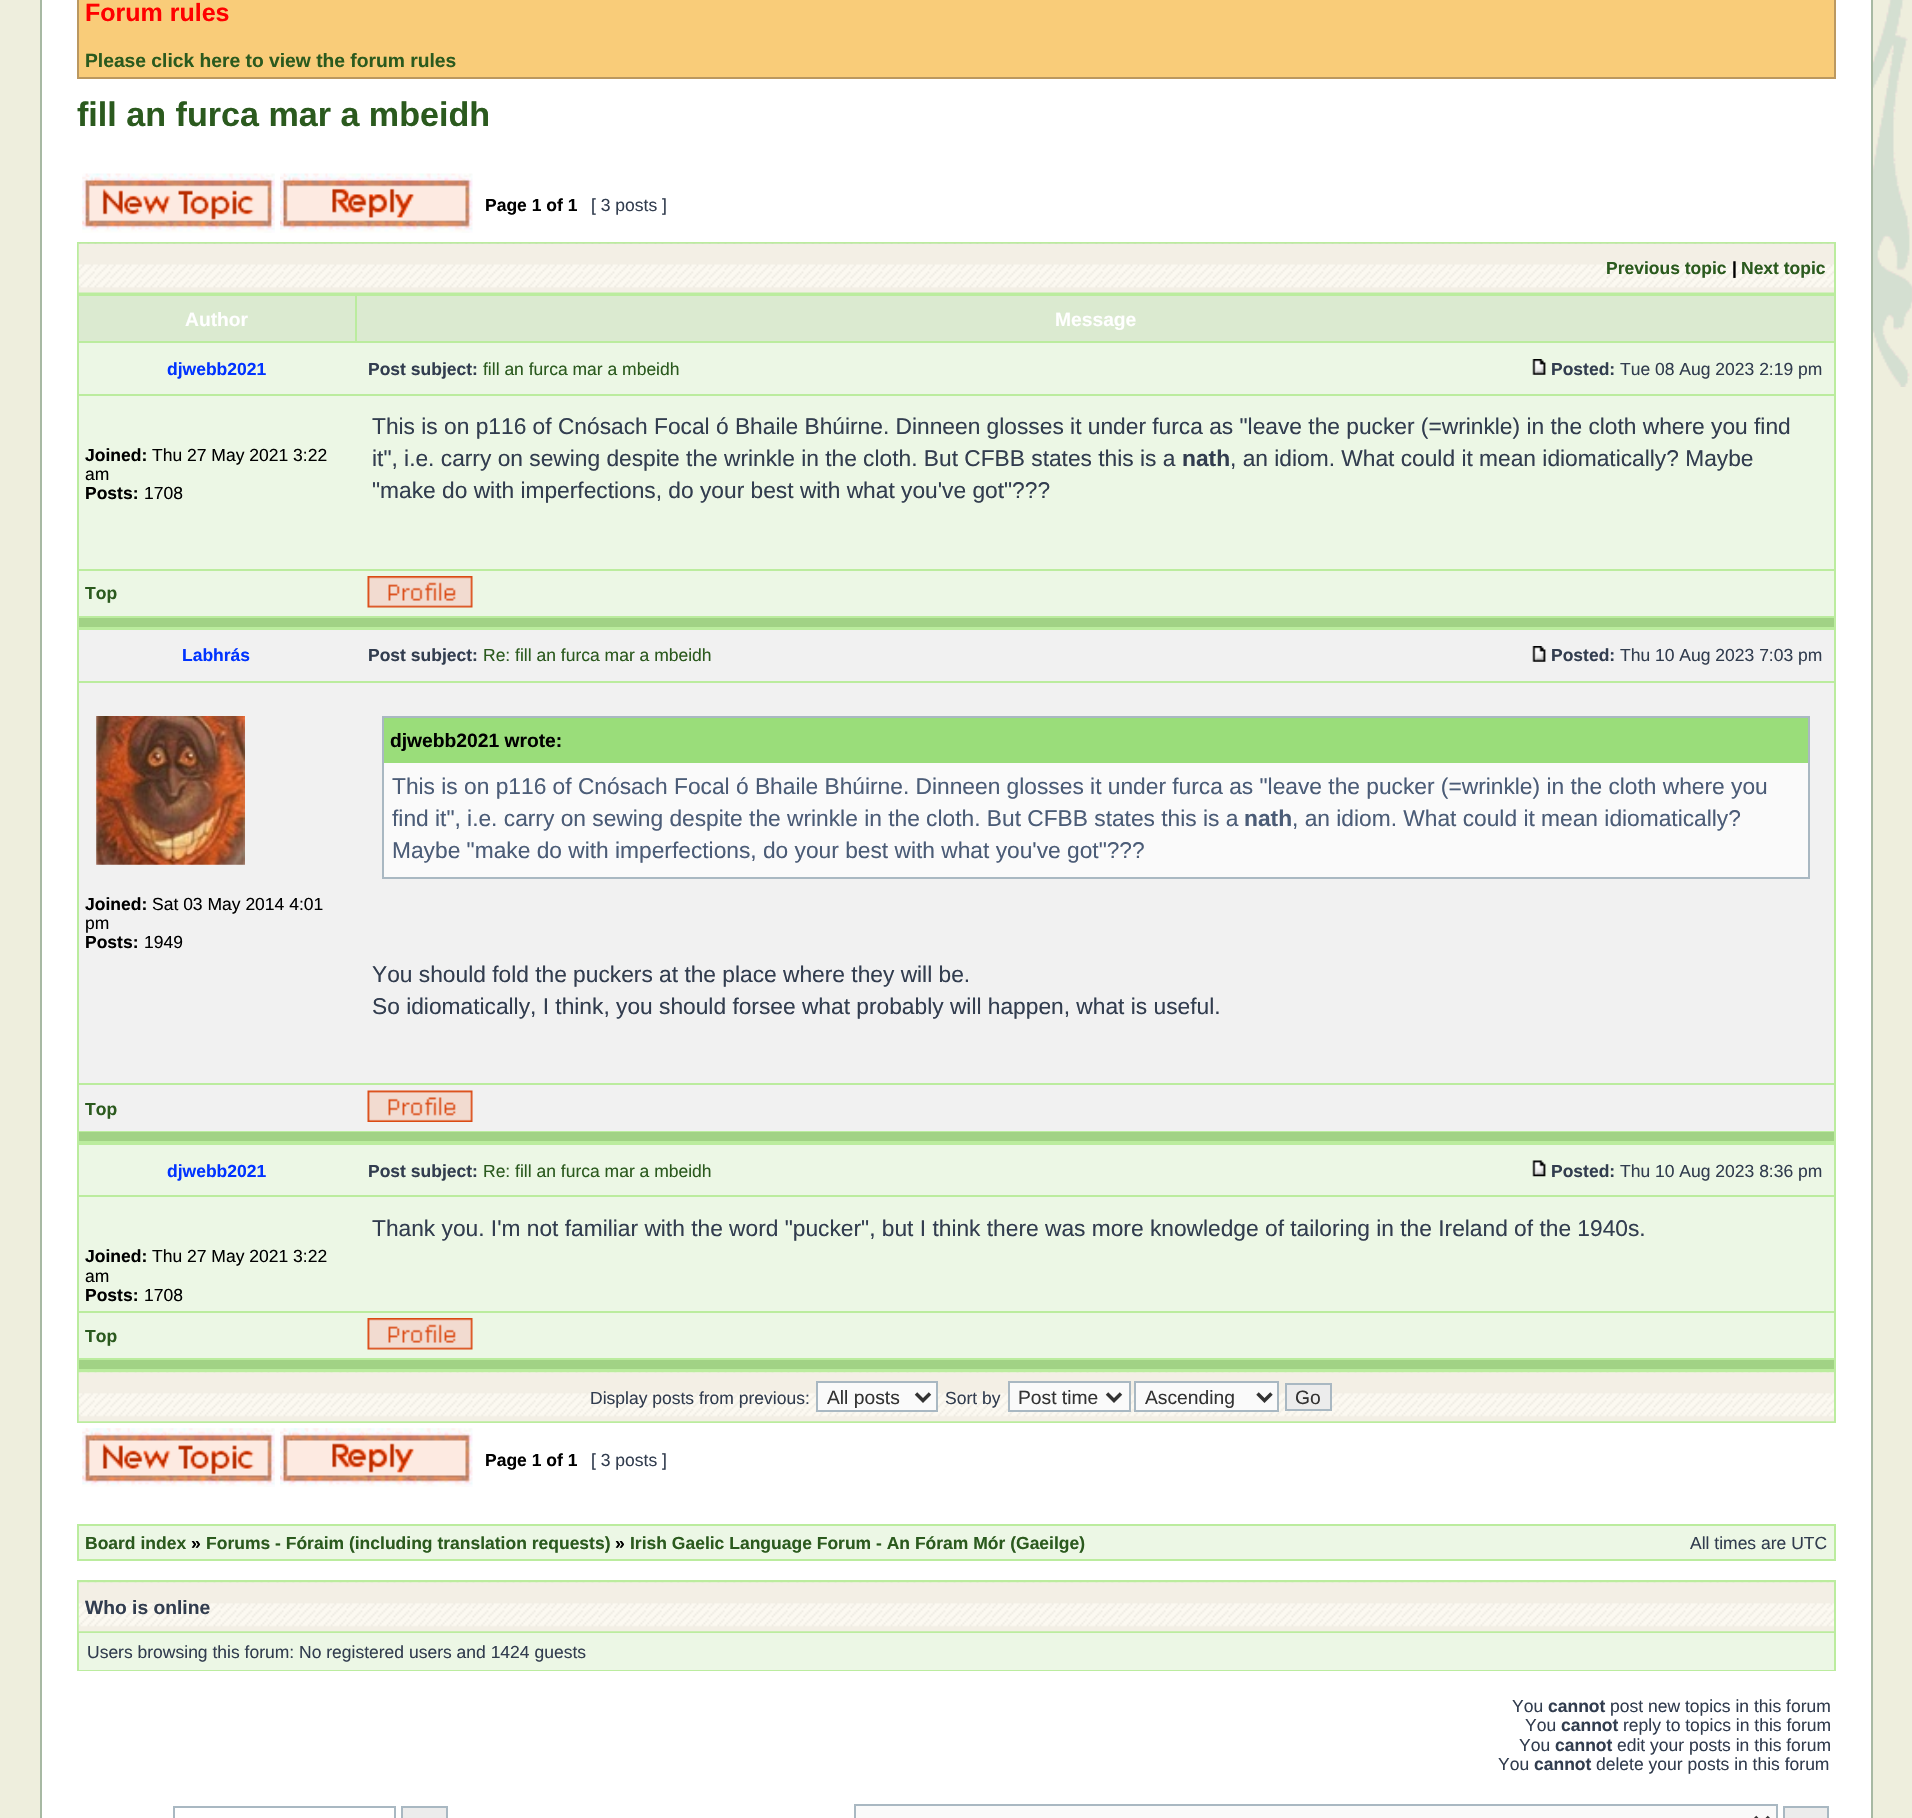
void draw(SkCanvas* c) {
SkPaint p;
p.setAntiAlias(true);
auto F=[&](const char* family, int weight, float size, bool italic = false){SkFontStyle style(weight, SkFontStyle::kNormal_Width,italic ? SkFontStyle::kItalic_Slant : SkFontStyle::kUpright_Slant);SkFont result(fontMgr->matchFamilyStyle(family, style), size);result.setSubpixel(true);return result;};
auto T=[&](const char* s, float x, float y, const SkFont& font){c->drawString(s, x, y, font, p);};
auto R=[&](float x, float y, float w, float h){c->drawRect(SkRect::MakeXYWH(x, y, w, h), p);};
auto I=[&](const char* path, float x, float y, float w, float h){auto image = SkImages::DeferredFromEncodedData(SkData::MakeFromFileName(path));c->drawImageRect(image, SkRect::MakeXYWH(x, y, w, h), SkSamplingOptions());};
auto P=[&](const char* data, bool evenOdd = false){SkPath result = *SkParsePath::FromSVGString(data);if (evenOdd) result.setFillType(SkPathFillType::kEvenOdd);return result;};
c->clear(0xffeeeedd);
I("1.png",1873,0,39,387);
p.setColor(0xffffffff);
R(42,0,1829,1818);
p.setColor(0xffa7b9a3);
R(1871,0,2,1818);
R(40,0,2,1818);
p.setColor(0xfff9cc79);
c->drawRect(SkRect::MakeXYWH(78,-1,1757,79),p);
p.setStroke(true);
p.setStrokeWidth(2);
p.setColor(0xffbb9860);
c->drawRect(SkRect::MakeXYWH(78,-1,1757,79),p);
auto f1 = F("Liberation Sans",700,25);
p.setStroke(false);
p.setColor(0xffff0000);
T("Forum rules",85,21,f1);
auto f2 = F("Liberation Sans",700,19.25);
p.setColor(0xff2b5a1e);
T("Please click here to view the forum rules",85,67,f2);
auto f3 = F("Liberation Sans",700,34.1);
T("fill an furca mar a mbeidh",77,126,f3);
I("2.png",82,173,193,60);
I("3.png",280,173,193,60);
auto f4 = F("Liberation Sans",700,17.5);
p.setColor(0xff000000);
T("Page 1 of 1",485,211,f4);
auto f5 = F("Liberation Sans",400,17.5);
p.setColor(0xff323d4f);
T("[ 3 posts ]",591,211,f5);
p.setColor(0xffbbec9e);
R(77,242,1759,1181);
p.setColor(0xff9add7a);
R(79,243,1755,1);
I("4.png",78,243,1756,50);
p.setColor(0xff2b5a1e);
T("Previous topic",1606,274,f4);
p.setColor(0xff000000);
T("|",1732,274,f4);
p.setColor(0xff2b5a1e);
T("Next topic",1741,274,f4);
p.setColor(0xffdbead0);
R(79,296,276,45);
p.setColor(0xffffffff);
T("Author",185,326,f2);
p.setColor(0xffdbead0);
R(357,296,1477,45);
p.setColor(0xffffffff);
T("Message",1055,326,f2);
p.setColor(0xffecf7e5);
R(79,343,1755,51);
p.setColor(0xff0033ff);
T("djwebb2021",167,375,f4);
p.setColor(0xff323d4f);
T("Post subject:",368,375,f4);
p.setColor(0xff2b5a1e);
T("fill an furca mar a mbeidh",483,375,f5);
I("5.png",1532,359,14,16);
p.setColor(0xff323d4f);
T("Posted:",1551,375,f4);
T("Tue 08 Aug 2023 2:19 pm",1620,375,f5);
p.setColor(0xffecf7e5);
R(79,396,1755,173);
p.setColor(0xff000000);
T("Joined:",85,461,f4);
T("Thu 27 May 2021 3:22",152,461,f5);
T("am",85,480,f5);
T("Posts:",85,499,f4);
T("1708",144,499,f5);
auto f6 = F("Liberation Sans",400,22.75);
p.setColor(0xff323d4f);
T("This is on p116 of Cnósach Focal ó Bhaile Bhúirne. Dinneen glosses it under furca as \"leave the pucker (=wrinkle) in the cloth where you find",372,434,f6);
T("it\", i.e. carry on sewing despite the wrinkle in the cloth. But CFBB states this is a",372,466,f6);
auto f7 = F("Liberation Sans",700,22.75);
T("nath",1182,466,f7);
T(", an idiom. What could it mean idiomatically? Maybe",1230,466,f6);
T("\"make do with imperfections, do your best with what you've got\"?\077?",372,498,f6);
p.setColor(0xffecf7e5);
R(79,571,1755,45);
p.setColor(0xff2b5a1e);
T("Top",85,599,f4);
I("6.png",367,576,106,32);
p.setColor(0xffa1d285);
R(79,618,1755,9);
p.setColor(0xfff1f1f1);
R(79,630,1755,51);
p.setColor(0xff0033ff);
T("Labhrás",182,661,f4);
p.setColor(0xff323d4f);
T("Post subject:",368,661,f4);
p.setColor(0xff2b5a1e);
T("Re: fill an furca mar a mbeidh",483,661,f5);
I("7.png",1532,646,14,16);
p.setColor(0xff323d4f);
T("Posted:",1551,661,f4);
T("Thu 10 Aug 2023 7:03 pm",1620,661,f5);
p.setColor(0xfff1f1f1);
R(79,683,1755,400);
I("8.png",96,716,149,149);
p.setColor(0xff000000);
T("Joined:",85,910,f4);
T("Sat 03 May 2014 4:01",152,910,f5);
T("pm",85,929,f5);
T("Posts:",85,948,f4);
T("1949",144,948,f5);
p.setColor(0xff9add7a);
R(384,718,1424,45);
p.setColor(0xffa9b8c2);
R(382,716,1428,2);
R(1808,716,2,163);
R(382,716,2,47);
p.setColor(0xff000000);
T("djwebb2021 wrote:",390,747,f2);
p.setColor(0xfffafafa);
R(384,763,1424,114);
p.setColor(0xffa9b8c2);
R(382,877,1428,2);
R(382,763,2,116);
p.setColor(0xff4b5c77);
T("This is on p116 of Cnósach Focal ó Bhaile Bhúirne. Dinneen glosses it under furca as \"leave the pucker (=wrinkle) in the cloth where you",392,794,f6);
T("find it\", i.e. carry on sewing despite the wrinkle in the cloth. But CFBB states this is a",392,826,f6);
T("nath",1244,826,f7);
T(", an idiom. What could it mean idiomatically?",1292,826,f6);
T("Maybe \"make do with imperfections, do your best with what you've got\"?\077?",392,858,f6);
p.setColor(0xff323d4f);
T("You should fold the puckers at the place where they will be.",372,982,f6);
T("So idiomatically, I think, you should forsee what probably will happen, what is useful.",372,1014,f6);
p.setColor(0xfff1f1f1);
R(79,1085,1755,46);
p.setColor(0xff2b5a1e);
T("Top",85,1115,f4);
I("9.png",367,1090,106,32);
p.setColor(0xffa1d285);
R(79,1132,1755,9);
p.setColor(0xffecf7e5);
R(79,1145,1755,50);
p.setColor(0xff0033ff);
T("djwebb2021",167,1177,f4);
p.setColor(0xff323d4f);
T("Post subject:",368,1177,f4);
p.setColor(0xff2b5a1e);
T("Re: fill an furca mar a mbeidh",483,1177,f5);
I("10.png",1532,1160,14,17);
p.setColor(0xff323d4f);
T("Posted:",1551,1177,f4);
T("Thu 10 Aug 2023 8:36 pm",1620,1177,f5);
p.setColor(0xffecf7e5);
R(79,1197,1755,114);
p.setColor(0xff323d4f);
T("Thank you. I'm not familiar with the word \"pucker\", but I think there was more knowledge of tailoring in the Ireland of the 1940s.",372,1236,f6);
p.setColor(0xff000000);
T("Joined:",85,1262,f4);
T("Thu 27 May 2021 3:22",152,1262,f5);
T("am",85,1282,f5);
T("Posts:",85,1301,f4);
T("1708",144,1301,f5);
p.setColor(0xffecf7e5);
R(79,1313,1755,45);
p.setColor(0xff2b5a1e);
T("Top",85,1342,f4);
I("6.png",367,1318,106,32);
p.setColor(0xffa1d285);
R(79,1360,1755,9);
I("11.png",78,1372,1756,50);
p.setColor(0xff323d4f);
T("Display posts from previous:",590,1404,f5);
p.setColor(0xfffafafa);
c->drawRect(SkRect::MakeXYWH(817,1382,120,29),p);
p.setStroke(true);
p.setColor(0xffa9b8c2);
c->drawRect(SkRect::MakeXYWH(817,1382,120,29),p);
p.setStrokeWidth(3.5);
p.setColor(0xff333333);
c->drawPath(P("M916 1393.5l7 7l7-7"),p);
auto f8 = F("Liberation Sans",400,19.25);
p.setStroke(false);
T("All posts",827,1404,f8);
p.setColor(0xff323d4f);
T("Sort by",945,1404,f5);
p.setColor(0xfffafafa);
c->drawRect(SkRect::MakeXYWH(1009,1382,121,29),p);
p.setStroke(true);
p.setStrokeWidth(2);
p.setColor(0xffa9b8c2);
c->drawRect(SkRect::MakeXYWH(1009,1382,121,29),p);
p.setStrokeWidth(3.5);
p.setColor(0xff333333);
c->drawPath(P("M1107 1393.5l7 7l7-7"),p);
p.setStroke(false);
T("Post time",1018,1404,f8);
p.setColor(0xfffafafa);
c->drawRect(SkRect::MakeXYWH(1135,1382,143,29),p);
p.setStroke(true);
p.setStrokeWidth(2);
p.setColor(0xffa9b8c2);
c->drawRect(SkRect::MakeXYWH(1135,1382,143,29),p);
p.setStrokeWidth(3.5);
p.setColor(0xff333333);
c->drawPath(P("M1257.5 1393.5l7 7l7-7"),p);
p.setStroke(false);
T("Ascending",1145,1404,f8);
p.setColor(0xffececec);
c->drawRect(SkRect::MakeXYWH(1286,1384,45,26),p);
p.setStroke(true);
p.setStrokeWidth(2);
p.setColor(0xffa9b8c2);
c->drawRect(SkRect::MakeXYWH(1286,1384,45,26),p);
p.setStroke(false);
p.setColor(0xff333333);
T("Go",1295,1404,f8);
I("12.png",82,1428,193,59);
I("13.png",280,1428,193,59);
p.setColor(0xff000000);
T("Page 1 of 1",485,1466,f4);
p.setColor(0xff323d4f);
T("[ 3 posts ]",591,1466,f5);
p.setColor(0xffbbec9e);
R(77,1524,1759,37);
p.setColor(0xffecf7e5);
R(79,1526,1755,33);
p.setColor(0xff2b5a1e);
T("Board index",85,1549,f4);
p.setColor(0xff000000);
T("»",191,1549,f4);
p.setColor(0xff2b5a1e);
T("Forums - Fóraim (including translation requests)",206,1549,f4);
p.setColor(0xff000000);
T("»",615,1549,f4);
p.setColor(0xff2b5a1e);
T("Irish Gaelic Language Forum - An Fóram Mór (Gaeilge)",630,1549,f4);
p.setColor(0xff323d4f);
T("All times are UTC",1690,1549,f5);
p.setColor(0xffbbec9e);
R(77,1580,1759,91);
I("11.png",78,1582,1756,50);
p.setColor(0xff323d4f);
T("Who is online",85,1614,f2);
p.setColor(0xffecf7e5);
R(79,1633,1755,37);
p.setColor(0xff323d4f);
T("Users browsing this forum: No registered users and 1424 guests",87,1658,f5);
T("You",1512,1712,f5);
T("cannot",1548,1712,f4);
T("post new topics in this forum",1610,1712,f5);
T("You",1525,1731,f5);
T("cannot",1561,1731,f4);
T("reply to topics in this forum",1623,1731,f5);
T("You",1519,1751,f5);
T("cannot",1555,1751,f4);
T("edit your posts in this forum",1617,1751,f5);
T("You",1498,1770,f5);
T("cannot",1534,1770,f4);
T("delete your posts in this forum",1596,1770,f5);
p.setStroke(true);
p.setColor(0xffa9b8c2);
c->drawRect(SkRect::MakeXYWH(174,1807,221,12),p);
p.setStroke(false);
p.setColor(0xffececec);
c->drawRect(SkRect::MakeXYWH(402,1807,45,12),p);
p.setStroke(true);
p.setColor(0xffa9b8c2);
c->drawRect(SkRect::MakeXYWH(402,1807,45,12),p);
p.setStroke(false);
p.setColor(0xfffafafa);
c->drawRect(SkRect::MakeXYWH(855,1805,922,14),p);
p.setStroke(true);
p.setColor(0xffa9b8c2);
c->drawRect(SkRect::MakeXYWH(855,1805,922,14),p);
p.setStrokeWidth(3.5);
p.setColor(0xff333333);
c->drawPath(P("M1755 1817l7 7l7-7"),p);
p.setStroke(false);
p.setColor(0xffececec);
c->drawRect(SkRect::MakeXYWH(1784,1807,44,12),p);
p.setStroke(true);
p.setStrokeWidth(2);
p.setColor(0xffa9b8c2);
c->drawRect(SkRect::MakeXYWH(1784,1807,44,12),p);
}
